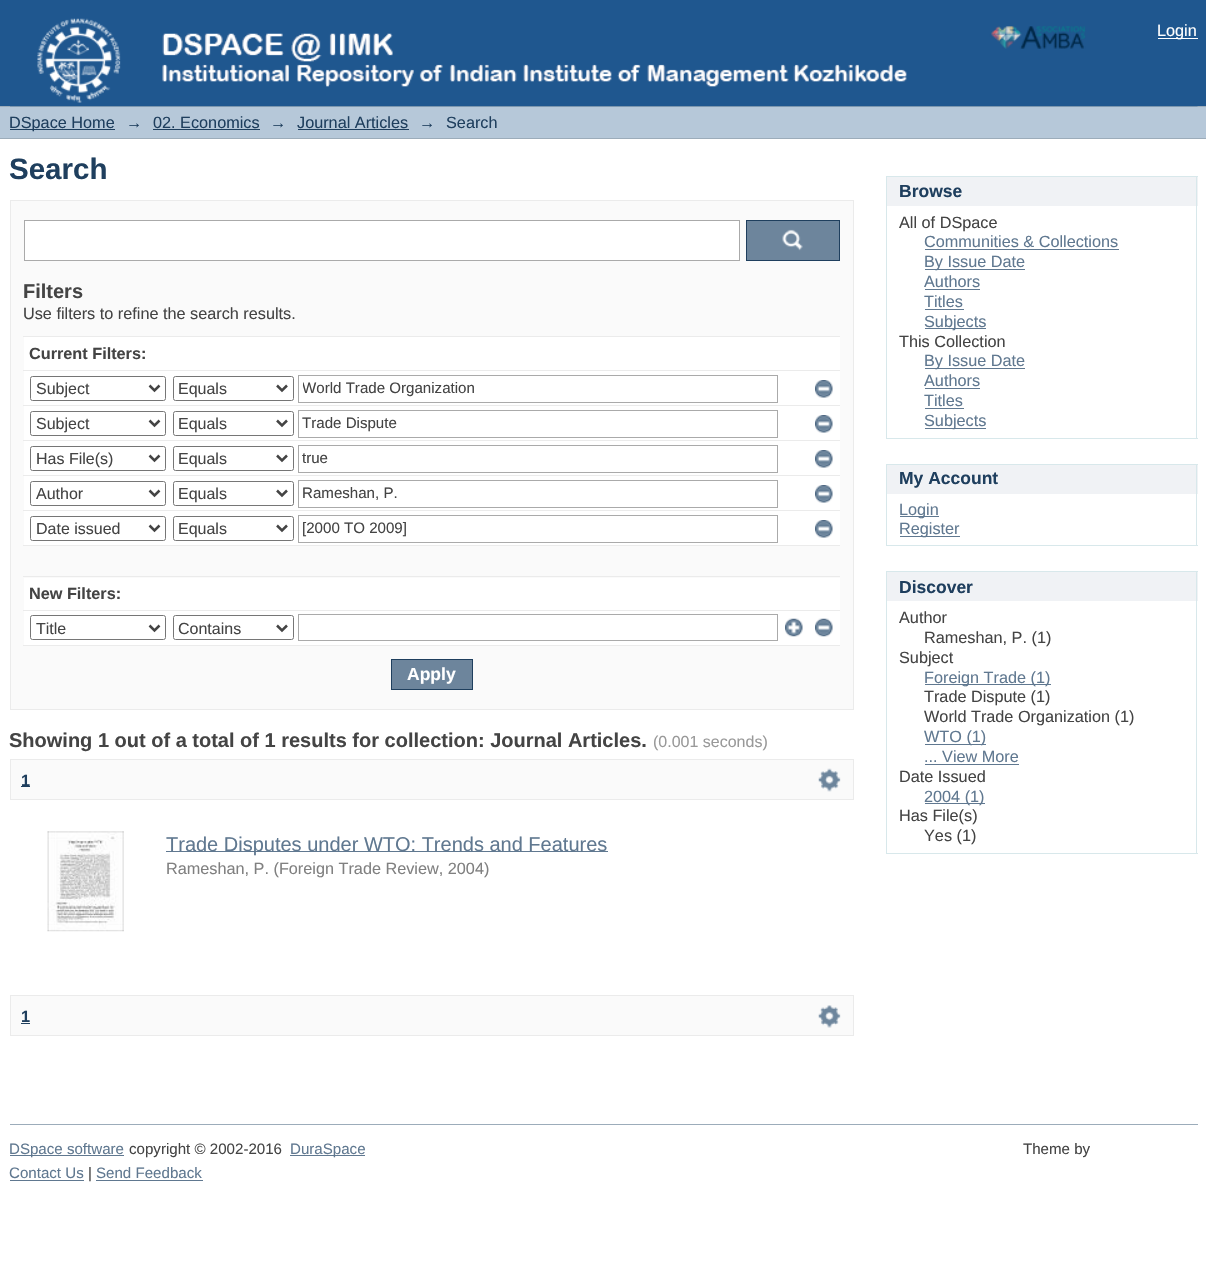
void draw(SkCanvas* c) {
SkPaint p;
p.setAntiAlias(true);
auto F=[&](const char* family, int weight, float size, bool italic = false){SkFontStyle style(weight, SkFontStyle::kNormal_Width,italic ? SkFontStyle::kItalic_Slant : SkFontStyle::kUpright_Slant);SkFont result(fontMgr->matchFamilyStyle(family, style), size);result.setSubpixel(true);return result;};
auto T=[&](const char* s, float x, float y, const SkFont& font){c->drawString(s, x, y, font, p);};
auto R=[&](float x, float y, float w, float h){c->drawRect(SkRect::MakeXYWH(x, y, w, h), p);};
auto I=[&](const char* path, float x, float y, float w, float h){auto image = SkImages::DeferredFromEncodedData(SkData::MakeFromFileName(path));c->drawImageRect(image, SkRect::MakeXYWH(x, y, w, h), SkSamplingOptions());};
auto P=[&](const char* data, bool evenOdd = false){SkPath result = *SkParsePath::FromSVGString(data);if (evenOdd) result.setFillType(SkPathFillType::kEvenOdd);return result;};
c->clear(0xffffffff);
p.setColor(0xff1f578f);
R(0,0,1206,106);
p.setColor(0xff9cacba);
R(0,106,1206,1);
I("1.png",10,18,1188,89);
p.setColor(0xffffffff);
R(1158,38,40,1);
auto f1 = F("Liberation Sans",400,16.25);
T("Login",1157,36,f1);
p.setColor(0xffb6c8d9);
R(0,107,1206,31);
p.setColor(0xff9cacba);
R(0,138,1206,1);
p.setColor(0xff1f3f5e);
R(10,129,105,1);
T("DSpace Home",9,128,f1);
T("→",126,128,f1);
T("02. Economics",153,128,f1);
R(153,129,107,1);
T("→",270,128,f1);
T("Journal Articles",297,128,f1);
R(298,129,111,1);
T("→",419,128,f1);
T("Search",446,128,f1);
auto f2 = F("Liberation Sans",700,29.5);
T("Search",9,179,f2);
p.setColor(0xfffafafa);
c->drawRect(SkRect::MakeXYWH(10.5,200.5,843,509),p);
p.setStroke(true);
p.setStrokeWidth(1);
p.setColor(0xffebebeb);
c->drawRect(SkRect::MakeXYWH(10.5,200.5,843,509),p);
p.setStroke(false);
p.setColor(0xffffffff);
c->drawRect(SkRect::MakeXYWH(24.5,220.5,715,40),p);
p.setStroke(true);
p.setColor(0xffaaaaaa);
c->drawRect(SkRect::MakeXYWH(24.5,220.5,715,40),p);
p.setStroke(false);
p.setColor(0xff6d859c);
R(747,221,92,39);
I("2.png",782,229,21,22);
p.setStroke(true);
p.setColor(0xff1f3f5e);
c->drawRect(SkRect::MakeXYWH(746.5,220.5,93,40),p);
auto f3 = F("Liberation Sans",700,20);
p.setStroke(false);
p.setColor(0xff444444);
T("Filters",23,298,f3);
T("Use filters to refine the search results.",23,319,f1);
p.setColor(0xffffffff);
R(24,337,816,308);
p.setColor(0xffebebeb);
R(23,336,817,1);
auto f4 = F("Liberation Sans",700,16.25);
p.setColor(0xff444444);
T("Current Filters:",29,359,f4);
p.setColor(0xffebebeb);
R(23,370,817,1);
p.setStroke(true);
p.setColor(0xff767676);
c->drawRoundRect(SkRect::MakeXYWH(30.5,376.5,135,24),2,2,p);
p.setStrokeWidth(2.5);
p.setColor(0xff444444);
c->drawPath(P("M149.5 385.5l5 5l5-5"),p);
auto f5 = F("Liberation Sans",400,16);
p.setStroke(false);
T("Subject",36,394,f5);
p.setStroke(true);
p.setStrokeWidth(1);
p.setColor(0xff767676);
c->drawRoundRect(SkRect::MakeXYWH(173.5,376.5,120,24),2,2,p);
p.setStrokeWidth(2.5);
p.setColor(0xff444444);
c->drawPath(P("M277 385.5l5 5l5-5"),p);
p.setStroke(false);
T("Equals",178,394,f5);
p.setStroke(true);
p.setStrokeWidth(1);
p.setColor(0xffaaaaaa);
c->drawRect(SkRect::MakeXYWH(298.5,375.5,479,27),p);
c->save();
c->clipRect(SkRect::MakeXYWH(303,380,470,18));
auto f6 = F("Liberation Sans",400,15.1);
p.setStroke(false);
p.setColor(0xff444444);
T("World Trade Organization",302,393,f6);
c->restore();
I("3.png",815,380,18,18);
p.setColor(0xffebebeb);
R(23,405,817,1);
p.setStroke(true);
p.setColor(0xff767676);
c->drawRoundRect(SkRect::MakeXYWH(30.5,411.5,135,24),2,2,p);
p.setStrokeWidth(2.5);
p.setColor(0xff444444);
c->drawPath(P("M149.5 420.5l5 5l5-5"),p);
p.setStroke(false);
T("Subject",36,429,f5);
p.setStroke(true);
p.setStrokeWidth(1);
p.setColor(0xff767676);
c->drawRoundRect(SkRect::MakeXYWH(173.5,411.5,120,24),2,2,p);
p.setStrokeWidth(2.5);
p.setColor(0xff444444);
c->drawPath(P("M277 420.5l5 5l5-5"),p);
p.setStroke(false);
T("Equals",178,429,f5);
p.setStroke(true);
p.setStrokeWidth(1);
p.setColor(0xffaaaaaa);
c->drawRect(SkRect::MakeXYWH(298.5,410.5,479,27),p);
p.setStroke(false);
p.setColor(0xff444444);
T("Trade Dispute",302,428,f6);
I("3.png",815,415,18,18);
p.setColor(0xffebebeb);
R(23,440,817,1);
p.setStroke(true);
p.setColor(0xff767676);
c->drawRoundRect(SkRect::MakeXYWH(30.5,446.5,135,24),2,2,p);
p.setStrokeWidth(2.5);
p.setColor(0xff444444);
c->drawPath(P("M149.5 455.5l5 5l5-5"),p);
p.setStroke(false);
T("Has File(s)",36,464,f5);
p.setStroke(true);
p.setStrokeWidth(1);
p.setColor(0xff767676);
c->drawRoundRect(SkRect::MakeXYWH(173.5,446.5,120,24),2,2,p);
p.setStrokeWidth(2.5);
p.setColor(0xff444444);
c->drawPath(P("M277 455.5l5 5l5-5"),p);
p.setStroke(false);
T("Equals",178,464,f5);
p.setStroke(true);
p.setStrokeWidth(1);
p.setColor(0xffaaaaaa);
c->drawRect(SkRect::MakeXYWH(298.5,445.5,479,27),p);
p.setStroke(false);
p.setColor(0xff444444);
T("true",302,463,f6);
I("3.png",815,450,18,18);
p.setColor(0xffebebeb);
R(23,475,817,1);
p.setStroke(true);
p.setColor(0xff767676);
c->drawRoundRect(SkRect::MakeXYWH(30.5,481.5,135,24),2,2,p);
p.setStrokeWidth(2.5);
p.setColor(0xff444444);
c->drawPath(P("M149.5 490.5l5 5l5-5"),p);
p.setStroke(false);
T("Author",36,499,f5);
p.setStroke(true);
p.setStrokeWidth(1);
p.setColor(0xff767676);
c->drawRoundRect(SkRect::MakeXYWH(173.5,481.5,120,24),2,2,p);
p.setStrokeWidth(2.5);
p.setColor(0xff444444);
c->drawPath(P("M277 490.5l5 5l5-5"),p);
p.setStroke(false);
T("Equals",178,499,f5);
p.setStroke(true);
p.setStrokeWidth(1);
p.setColor(0xffaaaaaa);
c->drawRect(SkRect::MakeXYWH(298.5,480.5,479,27),p);
p.setStroke(false);
p.setColor(0xff444444);
T("Rameshan, P.",302,498,f6);
I("3.png",815,485,18,18);
p.setColor(0xffebebeb);
R(23,510,817,1);
p.setStroke(true);
p.setColor(0xff767676);
c->drawRoundRect(SkRect::MakeXYWH(30.5,516.5,135,24),2,2,p);
p.setStrokeWidth(2.5);
p.setColor(0xff444444);
c->drawPath(P("M149.5 525.5l5 5l5-5"),p);
p.setStroke(false);
T("Date issued",36,534,f5);
p.setStroke(true);
p.setStrokeWidth(1);
p.setColor(0xff767676);
c->drawRoundRect(SkRect::MakeXYWH(173.5,516.5,120,24),2,2,p);
p.setStrokeWidth(2.5);
p.setColor(0xff444444);
c->drawPath(P("M277 525.5l5 5l5-5"),p);
p.setStroke(false);
T("Equals",178,534,f5);
p.setStroke(true);
p.setStrokeWidth(1);
p.setColor(0xffaaaaaa);
c->drawRect(SkRect::MakeXYWH(298.5,515.5,479,27),p);
p.setStroke(false);
p.setColor(0xff444444);
T("[2000 TO 2009]",302,533,f6);
I("3.png",815,520,18,18);
p.setColor(0xfffafafa);
R(24,546,816,32);
p.setColor(0xffebebeb);
R(23,545,817,1);
R(23,576,817,1);
p.setColor(0xff444444);
T("New Filters:",29,599,f4);
p.setColor(0xffebebeb);
R(23,610,817,1);
p.setStroke(true);
p.setColor(0xff767676);
c->drawRoundRect(SkRect::MakeXYWH(30.5,615.5,135,24),2,2,p);
p.setStrokeWidth(2.5);
p.setColor(0xff444444);
c->drawPath(P("M149.5 625.5l5 5l5-5"),p);
p.setStroke(false);
T("Title",36,634,f5);
p.setStroke(true);
p.setStrokeWidth(1);
p.setColor(0xff767676);
c->drawRoundRect(SkRect::MakeXYWH(173.5,615.5,120,24),2,2,p);
p.setStrokeWidth(2.5);
p.setColor(0xff444444);
c->drawPath(P("M277 625.5l5 5l5-5"),p);
p.setStroke(false);
T("Contains",178,634,f5);
p.setStroke(true);
p.setStrokeWidth(1);
p.setColor(0xffaaaaaa);
c->drawRect(SkRect::MakeXYWH(298.5,614.5,479,26),p);
I("4.png",785,618,18,19);
I("5.png",815,618,18,19);
p.setStroke(false);
p.setColor(0xffebebeb);
R(23,645,817,1);
p.setColor(0xff6d859c);
c->drawRect(SkRect::MakeXYWH(391.5,659.5,81,30),p);
p.setStroke(true);
p.setColor(0xff1f3f5e);
c->drawRect(SkRect::MakeXYWH(391.5,659.5,81,30),p);
auto f7 = F("Liberation Sans",700,17.5);
p.setStroke(false);
p.setColor(0xffffffff);
T("Apply",407,680,f7);
p.setColor(0xff444444);
T("Showing 1 out of a total of 1 results for collection: Journal Articles.",9,747,f3);
p.setColor(0xff999999);
T("(0.001 seconds)",653,747,f5);
p.setColor(0xfffafafa);
c->drawRect(SkRect::MakeXYWH(10.5,759.5,843,40),p);
p.setStroke(true);
p.setColor(0xffebebeb);
c->drawRect(SkRect::MakeXYWH(10.5,759.5,843,40),p);
p.setStroke(false);
p.setColor(0xff1f3f5e);
T("1",21,786,f4);
R(21,786,9,1);
I("6.png",818,768,23,24);
I("7.png",47,831,77,101);
p.setColor(0xff607890);
R(166,851,442,1);
auto f8 = F("Liberation Sans",400,20);
T("Trade Disputes under WTO: Trends and Features",166,851,f8);
p.setColor(0xff808080);
T("Rameshan, P. (Foreign Trade Review, 2004)",166,874,f1);
p.setColor(0xfffafafa);
c->drawRect(SkRect::MakeXYWH(10.5,995.5,843,40),p);
p.setStroke(true);
p.setColor(0xffebebeb);
c->drawRect(SkRect::MakeXYWH(10.5,995.5,843,40),p);
p.setStroke(false);
p.setColor(0xff1f3f5e);
T("1",21,1022,f4);
R(21,1023,9,1);
I("8.png",818,1005,23,23);
p.setColor(0xfff0f2f5);
R(887,177,311,29);
p.setColor(0xffd8e8eb);
R(886,176,312,1);
R(1196,176,1,263);
R(886,176,1,30);
p.setColor(0xff1f3f5e);
T("Browse",899,197,f7);
p.setColor(0xffd8e8eb);
R(886,438,312,1);
R(886,206,1,233);
p.setColor(0xff444444);
T("All of DSpace",899,228,f1);
p.setColor(0xff607890);
T("Communities & Collections",924,247,f1);
R(925,249,194,1);
R(925,269,100,1);
T("By Issue Date",924,267,f1);
T("Authors",924,287,f1);
R(925,289,55,1);
T("Titles",924,307,f1);
R(925,309,39,1);
R(925,328,61,1);
T("Subjects",924,327,f1);
p.setColor(0xff444444);
T("This Collection",899,347,f1);
p.setColor(0xff607890);
R(925,368,100,1);
T("By Issue Date",924,366,f1);
T("Authors",924,386,f1);
R(925,388,55,1);
T("Titles",924,406,f1);
R(925,408,39,1);
R(925,428,61,1);
T("Subjects",924,426,f1);
p.setColor(0xfff0f2f5);
R(887,465,311,29);
p.setColor(0xffd8e8eb);
R(886,464,312,1);
R(1196,464,1,82);
R(886,464,1,30);
p.setColor(0xff1f3f5e);
T("My Account",899,484,f7);
p.setColor(0xffd8e8eb);
R(886,545,312,1);
R(886,494,1,52);
p.setColor(0xff607890);
R(900,516,39,1);
T("Login",899,515,f1);
R(900,536,60,1);
T("Register",899,534,f1);
p.setColor(0xfff0f2f5);
R(887,572,311,29);
p.setColor(0xffd8e8eb);
R(886,571,312,1);
R(1196,571,1,283);
R(886,571,1,30);
p.setColor(0xff1f3f5e);
T("Discover",899,593,f7);
p.setColor(0xffd8e8eb);
R(886,853,312,1);
R(886,601,1,253);
p.setColor(0xff444444);
T("Author",899,623,f1);
T("Rameshan, P. (1)",924,643,f1);
T("Subject",899,663,f1);
p.setColor(0xff607890);
R(925,684,126,1);
T("Foreign Trade (1)",924,683,f1);
p.setColor(0xff444444);
T("Trade Dispute (1)",924,702,f1);
T("World Trade Organization (1)",924,722,f1);
p.setColor(0xff607890);
R(925,744,61,1);
T("WTO (1)",924,742,f1);
T("... View More",924,762,f1);
R(925,764,94,1);
p.setColor(0xff444444);
T("Date Issued",899,782,f1);
p.setColor(0xff607890);
R(925,803,60,1);
T("2004 (1)",924,802,f1);
p.setColor(0xff444444);
T("Has File(s)",899,821,f1);
T("Yes (1)",924,841,f1);
p.setColor(0xff9cacba);
R(10,1124,1188,1);
p.setColor(0xff607890);
R(10,1155,114,1);
T("DSpace software",9,1154,f6);
p.setColor(0xff444444);
T("copyright © 2002-2016",129,1154,f6);
p.setColor(0xff607890);
R(290,1155,75,1);
T("DuraSpace",290,1154,f6);
p.setColor(0xff444444);
T("Theme by",1023,1154,f6);
p.setColor(0xff607890);
T("Contact Us",9,1178,f6);
R(10,1180,74,1);
p.setColor(0xff444444);
T("|",88,1178,f6);
p.setColor(0xff607890);
T("Send Feedback",96,1178,f6);
R(96,1180,107,1);
}
